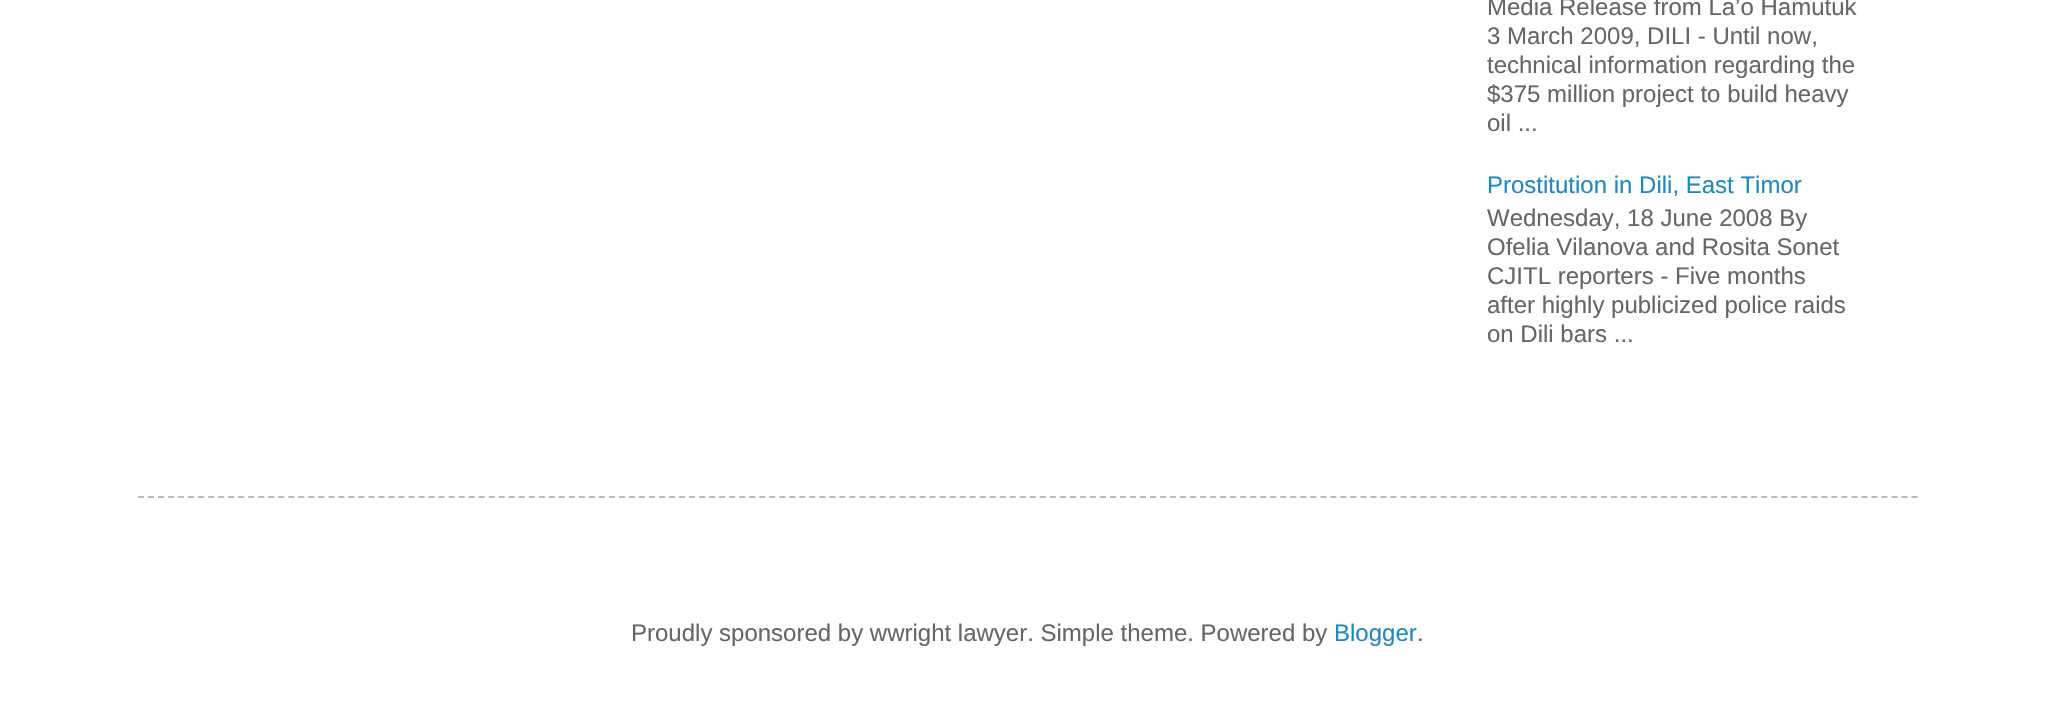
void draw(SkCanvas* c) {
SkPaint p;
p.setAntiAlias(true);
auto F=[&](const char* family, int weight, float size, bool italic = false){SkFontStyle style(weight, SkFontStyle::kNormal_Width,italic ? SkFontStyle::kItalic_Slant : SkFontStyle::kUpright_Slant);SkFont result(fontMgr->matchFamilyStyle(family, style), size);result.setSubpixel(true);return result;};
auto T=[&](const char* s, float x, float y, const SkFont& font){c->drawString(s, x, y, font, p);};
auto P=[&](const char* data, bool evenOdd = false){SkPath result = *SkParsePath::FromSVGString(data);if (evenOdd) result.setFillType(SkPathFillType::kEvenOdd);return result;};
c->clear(0xffffffff);
auto f1 = F("Liberation Sans",400,24);
p.setColor(0xff666666);
T("Media Release from La’o Hamutuk",1487,15,f1);
T("3 March 2009, DILI - Until now,",1487,44,f1);
T("technical information regarding the",1487,73,f1);
T("$375 million project to build heavy",1487,102,f1);
T("oil ...",1487,131,f1);
p.setColor(0xff2288bb);
T("Prostitution in Dili, East Timor",1487,193,f1);
p.setColor(0xff666666);
T("Wednesday, 18 June 2008 By",1487,226,f1);
T("Ofelia Vilanova and Rosita Sonet",1487,255,f1);
T("CJITL reporters - Five months",1487,284,f1);
T("after highly publicized police raids",1487,313,f1);
T("on Dili bars ...",1487,342,f1);
p.setStroke(true);
p.setStrokeWidth(2);
p.setColor(0xffbbbbbb);
p.setPathEffect(SkDashPathEffect::Make({{6,4.02f}}, 0));
c->drawPath(P("M138 497h1780"),p);
p.setPathEffect(nullptr);
p.setStroke(false);
p.setColor(0xff666666);
T("Proudly sponsored by wwright lawyer. Simple theme. Powered by",631,641,f1);
p.setColor(0xff2288bb);
T("Blogger",1334,641,f1);
p.setColor(0xff666666);
T(".",1417,641,f1);
}
